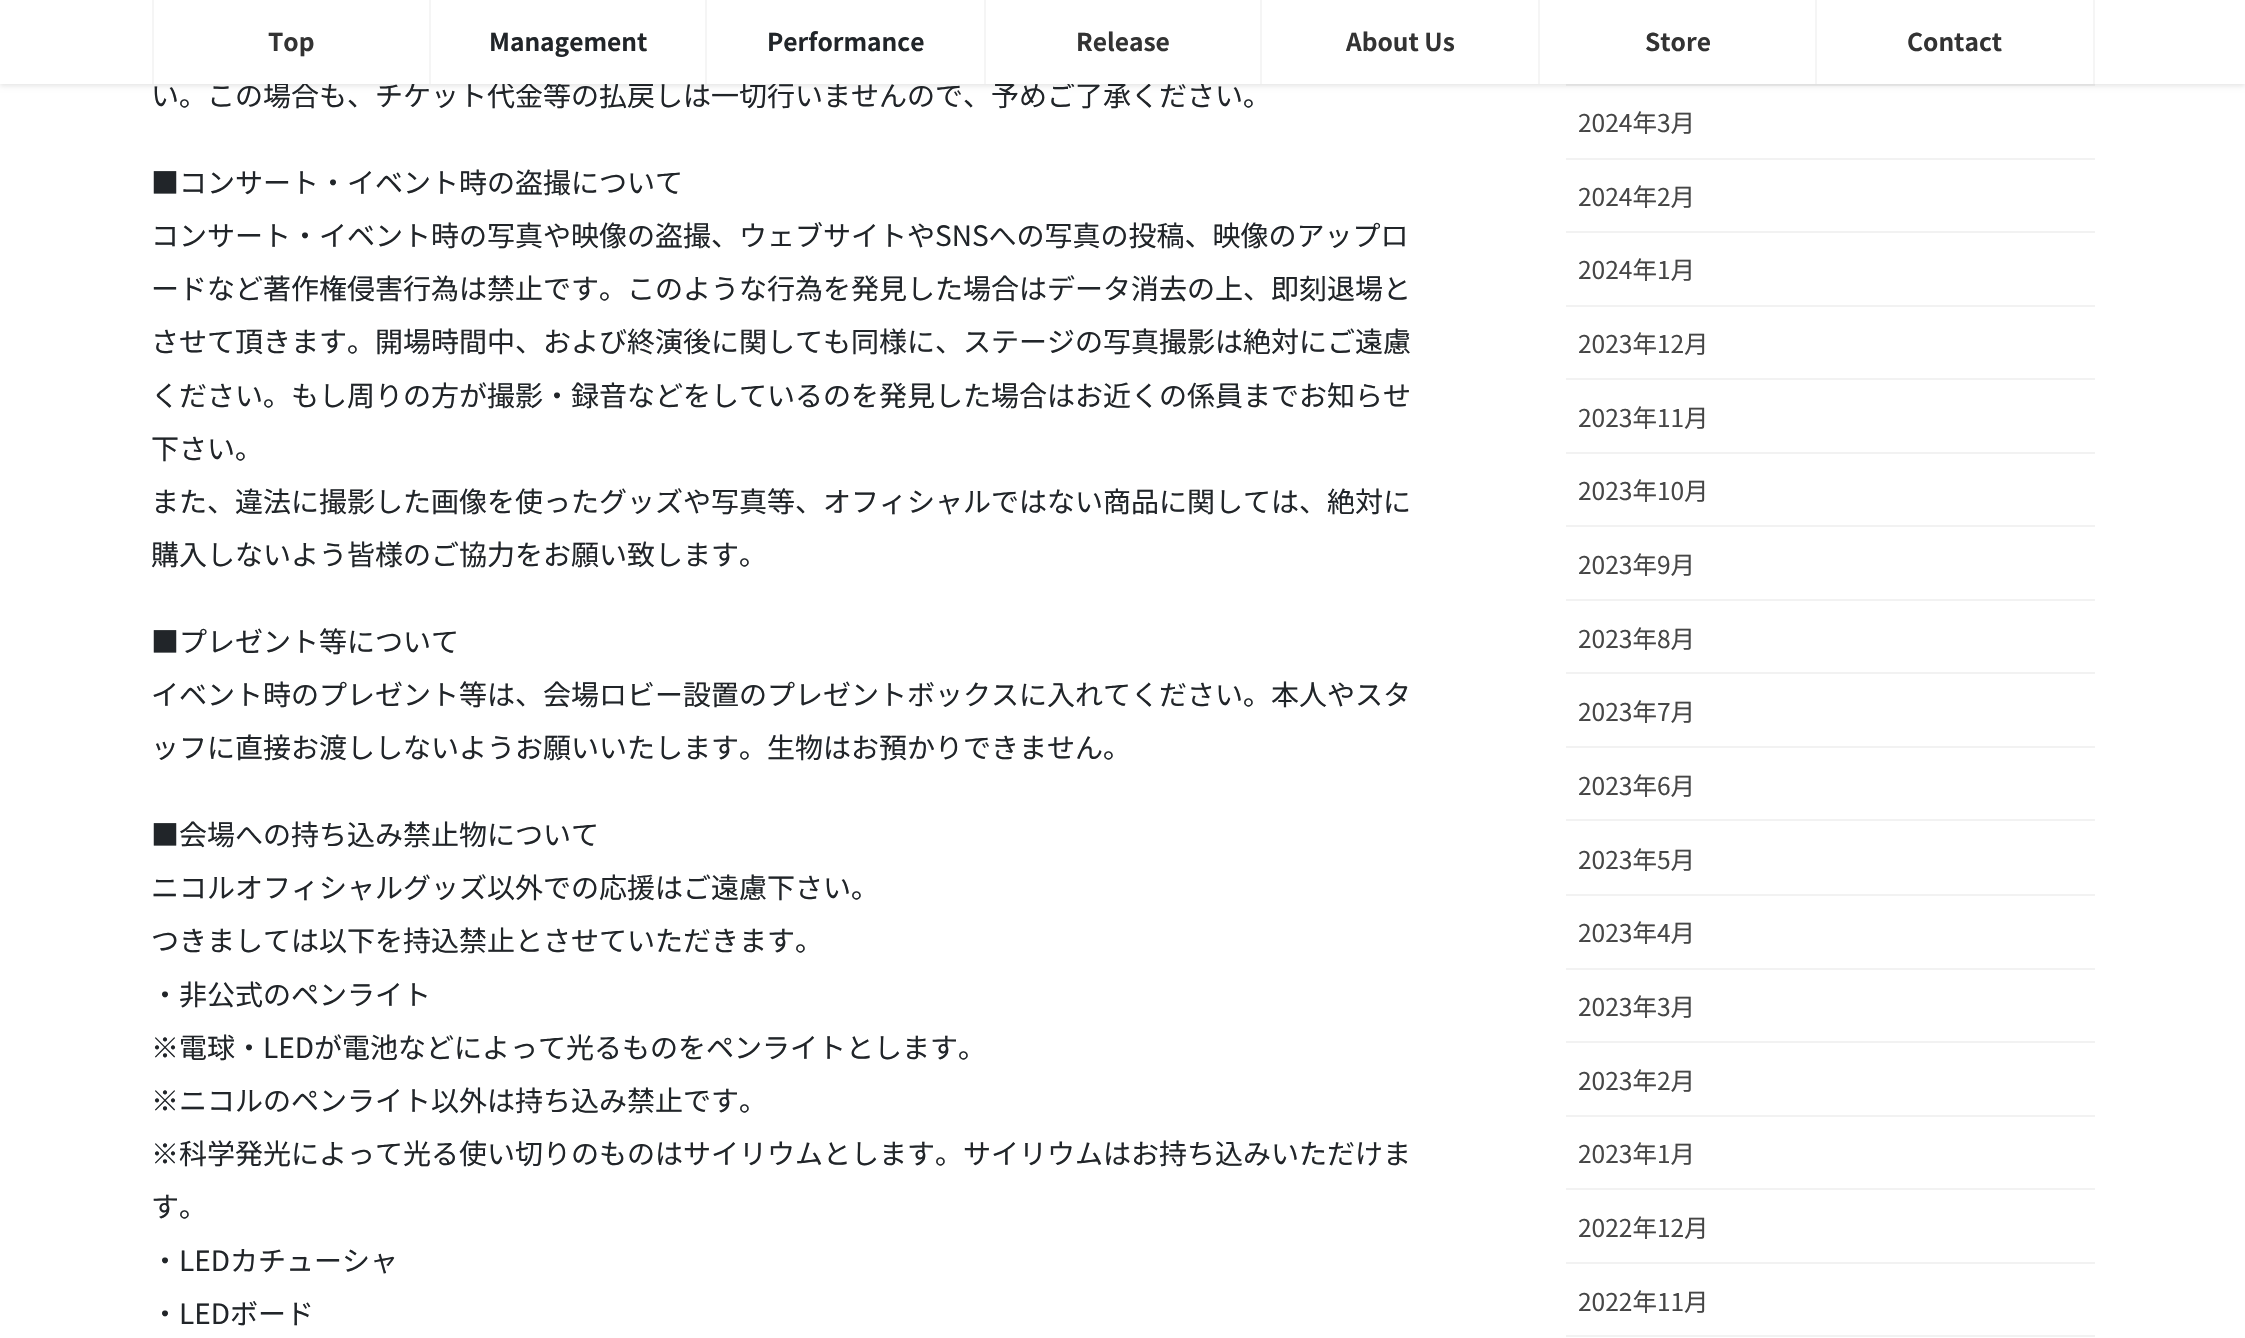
void draw(SkCanvas* c) {
SkPaint p;
p.setAntiAlias(true);
auto F=[&](const char* family, int weight, float size, bool italic = false){SkFontStyle style(weight, SkFontStyle::kNormal_Width,italic ? SkFontStyle::kItalic_Slant : SkFontStyle::kUpright_Slant);SkFont result(fontMgr->matchFamilyStyle(family, style), size);result.setSubpixel(true);return result;};
auto T=[&](const char* s, float x, float y, const SkFont& font){c->drawString(s, x, y, font, p);};
auto R=[&](float x, float y, float w, float h){c->drawRect(SkRect::MakeXYWH(x, y, w, h), p);};
c->clear(0xffffffff);
p.setColor(0xfff2f2f2);
R(1566,84,529,2);
p.setColor(0x1a000000);
p.setMaskFilter(SkMaskFilter::MakeBlur(kNormal_SkBlurStyle, 2.5));
c->drawRect(SkRect::MakeXYWH(0,2,2245,84),p);
p.setMaskFilter(nullptr);
auto f1 = F("Noto Sans JP",400,28);
p.setColor(0xff212529);
T("い。この場合も、チケット代金等の払戻しは一切行いませんので、予めご了承ください。",151,106,f1);
p.setColor(0xffffffff);
R(0,0,2245,84);
p.setColor(0xfff5f5f5);
R(152,0,2,84);
auto f2 = F("Noto Sans JP",700,24.5);
p.setColor(0xff333333);
T("Top",268,51,f2);
p.setColor(0xfff5f5f5);
R(429,0,2,84);
p.setColor(0xff212529);
T("Management",489,51,f2);
p.setColor(0xfff5f5f5);
R(705,0,2,84);
p.setColor(0xff212529);
T("Performance",767,51,f2);
p.setColor(0xfff5f5f5);
R(984,0,2,84);
p.setColor(0xff333333);
T("Release",1076,51,f2);
p.setColor(0xfff5f5f5);
R(1260,0,2,84);
p.setColor(0xff333333);
T("About Us",1346,51,f2);
p.setColor(0xfff5f5f5);
R(1538,0,2,84);
p.setColor(0xff333333);
T("Store",1645,51,f2);
p.setColor(0xfff5f5f5);
R(2093,0,2,84);
R(1815,0,2,84);
p.setColor(0xff333333);
T("Contact",1907,51,f2);
p.setColor(0xff212529);
T("■コンサート・イベント時の盗撮について",151,193,f1);
T("コンサート・イベント時の写真や映像の盗撮、ウェブサイトやSNSへの写真の投稿、映像のアップロ",151,246,f1);
T("ードなど著作権侵害行為は禁止です。このような行為を発見した場合はデータ消去の上、即刻退場と",151,299,f1);
T("させて頂きます。開場時間中、および終演後に関しても同様に、ステージの写真撮影は絶対にご遠慮",151,352,f1);
T("ください。もし周りの方が撮影・録音などをしているのを発見した場合はお近くの係員までお知らせ",151,406,f1);
T("下さい。",151,459,f1);
T("また、違法に撮影した画像を使ったグッズや写真等、オフィシャルではない商品に関しては、絶対に",151,512,f1);
T("購入しないよう皆様のご協力をお願い致します。",151,565,f1);
T("■プレゼント等について",151,652,f1);
T("イベント時のプレゼント等は、会場ロビー設置のプレゼントボックスに入れてください。本人やスタ",151,705,f1);
T("ッフに直接お渡ししないようお願いいたします。生物はお預かりできません。",151,758,f1);
T("■会場への持ち込み禁止物について",151,845,f1);
T("ニコルオフィシャルグッズ以外での応援はご遠慮下さい。",151,898,f1);
T("つきましては以下を持込禁止とさせていただきます。",151,951,f1);
T("・非公式のペンライト",151,1005,f1);
T("※電球・LEDが電池などによって光るものをペンライトとします。",151,1058,f1);
T("※ニコルのペンライト以外は持ち込み禁止です。",151,1111,f1);
T("※科学発光によって光る使い切りのものはサイリウムとします。サイリウムはお持ち込みいただけま",151,1164,f1);
T("す。",151,1217,f1);
T("・LEDカチューシャ",151,1271,f1);
T("・LEDボード",151,1324,f1);
p.setColor(0xfff2f2f2);
R(1566,158,529,2);
auto f3 = F("Noto Sans JP",400,24.5);
p.setColor(0xff464646);
T("2024年3月",1578,132,f3);
p.setColor(0xfff2f2f2);
R(1566,231,529,2);
p.setColor(0xff464646);
T("2024年2月",1578,206,f3);
p.setColor(0xfff2f2f2);
R(1566,305,529,2);
p.setColor(0xff464646);
T("2024年1月",1578,279,f3);
p.setColor(0xfff2f2f2);
R(1566,378,529,2);
p.setColor(0xff464646);
T("2023年12月",1578,353,f3);
p.setColor(0xfff2f2f2);
R(1566,452,529,2);
p.setColor(0xff464646);
T("2023年11月",1578,427,f3);
p.setColor(0xfff2f2f2);
R(1566,525,529,2);
p.setColor(0xff464646);
T("2023年10月",1578,500,f3);
p.setColor(0xfff2f2f2);
R(1566,599,529,2);
p.setColor(0xff464646);
T("2023年9月",1578,574,f3);
p.setColor(0xfff2f2f2);
R(1566,672,529,2);
p.setColor(0xff464646);
T("2023年8月",1578,648,f3);
p.setColor(0xfff2f2f2);
R(1566,746,529,2);
p.setColor(0xff464646);
T("2023年7月",1578,721,f3);
p.setColor(0xfff2f2f2);
R(1566,819,529,2);
p.setColor(0xff464646);
T("2023年6月",1578,795,f3);
p.setColor(0xfff2f2f2);
R(1566,894,529,2);
p.setColor(0xff464646);
T("2023年5月",1578,869,f3);
p.setColor(0xfff2f2f2);
R(1566,968,529,2);
p.setColor(0xff464646);
T("2023年4月",1578,942,f3);
p.setColor(0xfff2f2f2);
R(1566,1041,529,2);
p.setColor(0xff464646);
T("2023年3月",1578,1016,f3);
p.setColor(0xfff2f2f2);
R(1566,1115,529,2);
p.setColor(0xff464646);
T("2023年2月",1578,1090,f3);
p.setColor(0xfff2f2f2);
R(1566,1188,529,2);
p.setColor(0xff464646);
T("2023年1月",1578,1163,f3);
p.setColor(0xfff2f2f2);
R(1566,1262,529,2);
p.setColor(0xff464646);
T("2022年12月",1578,1237,f3);
p.setColor(0xfff2f2f2);
R(1566,1335,529,2);
p.setColor(0xff464646);
T("2022年11月",1578,1311,f3);
}
